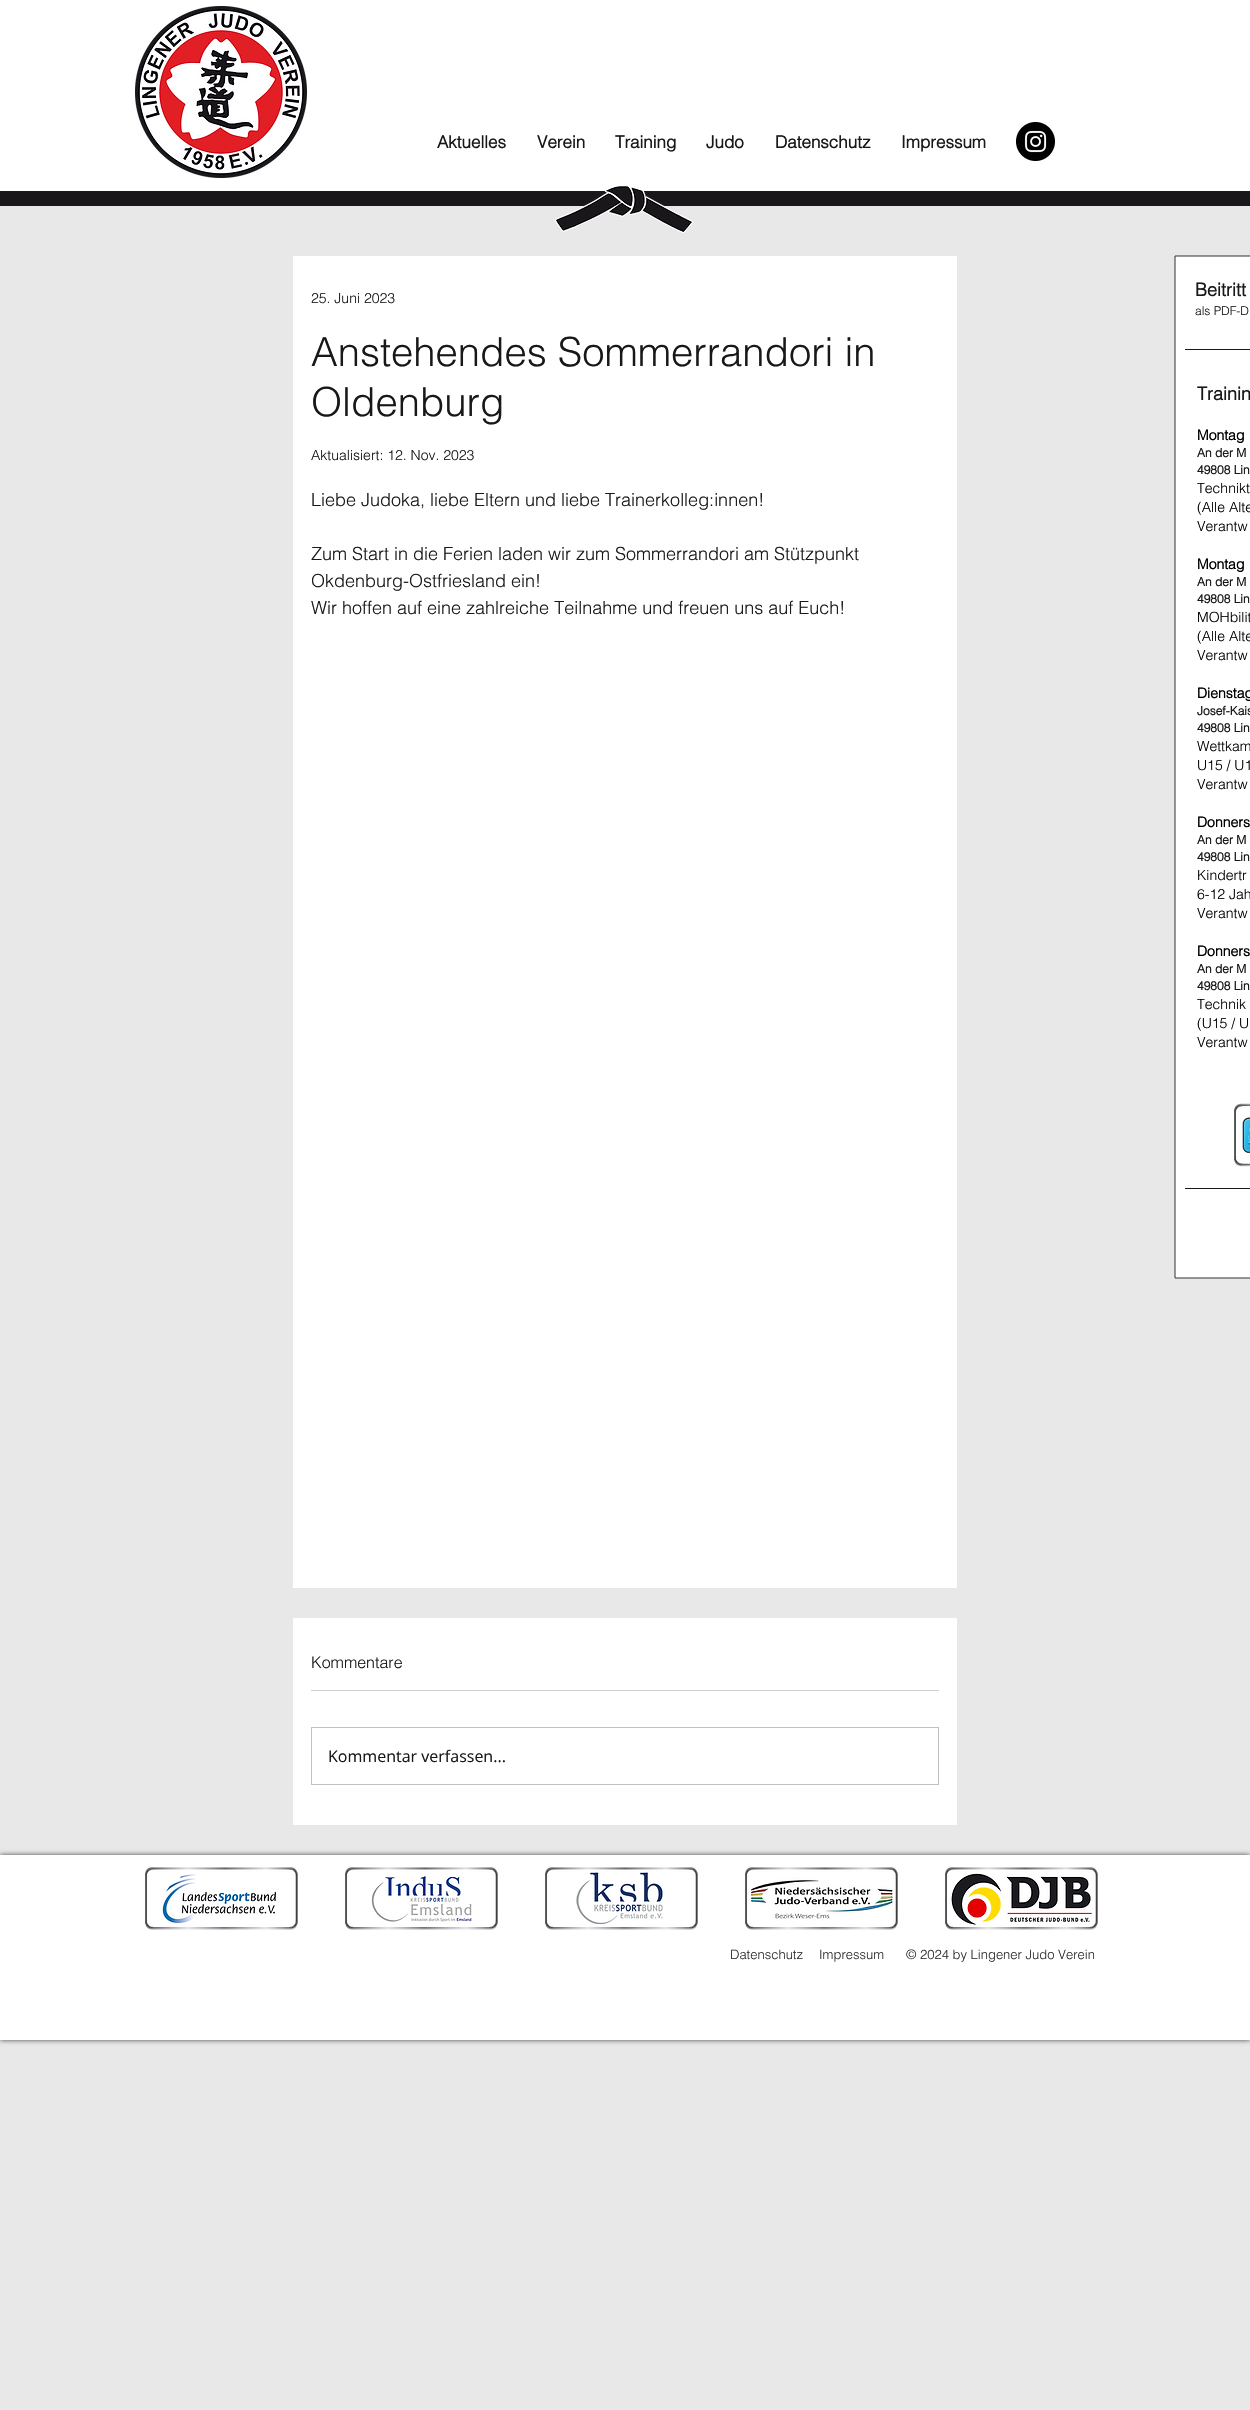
void draw(SkCanvas* c) {
SkPaint p;
p.setAntiAlias(true);
auto F=[&](const char* family, int weight, float size, bool italic = false){SkFontStyle style(weight, SkFontStyle::kNormal_Width,italic ? SkFontStyle::kItalic_Slant : SkFontStyle::kUpright_Slant);SkFont result(fontMgr->matchFamilyStyle(family, style), size);result.setSubpixel(true);return result;};
auto T=[&](const char* s, float x, float y, const SkFont& font){c->drawString(s, x, y, font, p);};
auto R=[&](float x, float y, float w, float h){c->drawRect(SkRect::MakeXYWH(x, y, w, h), p);};
auto I=[&](const char* path, float x, float y, float w, float h){auto image = SkImages::DeferredFromEncodedData(SkData::MakeFromFileName(path));c->drawImageRect(image, SkRect::MakeXYWH(x, y, w, h), SkSamplingOptions());};
auto P=[&](const char* data, bool evenOdd = false){SkPath result = *SkParsePath::FromSVGString(data);if (evenOdd) result.setFillType(SkPathFillType::kEvenOdd);return result;};
c->clear(0xffe8e8e8);
p.setColor(0xffffffff);
R(0,0,1250,191);
I("1.png",135,6,172,172);
auto f1 = F("helvetica",700,17);
p.setColor(0xff1a171b);
T("Aktuelles",437,148,f1);
T("Verein",537,148,f1);
T("Training",615,148,f1);
T("Judo",706,148,f1);
T("Datenschutz",775,148,f1);
T("Impressum",901,148,f1);
I("2.png",1016,122,39,39);
R(0,191,1250,15);
p.setColor(0xffffffff);
R(1175,256,75,1022);
p.setStroke(true);
p.setStrokeWidth(1);
p.setColor(0xff303030);
c->drawPath(P("M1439 256v1022h-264v-1022z"),p);
p.setStroke(false);
p.setColor(0xffffffff);
R(293,256,664,1332);
auto f2 = F("helvetica",300,14);
p.setColor(0xff1a171b);
T("25. Juni 2023",311,303,f2);
auto f3 = F("helvetica",300,40);
T("Anstehendes Sommerrandori in",311,366,f3);
T("Oldenburg",311,416,f3);
T("Aktualisiert: 12. Nov. 2023",311,460,f2);
auto f4 = F("helvetica",300,18);
T("Liebe Judoka, liebe Eltern und liebe Trainerkolleg:innen!",311,506,f4);
T("Zum Start in die Ferien laden wir zum Sommerrandori am Stützpunkt",311,560,f4);
T("Okdenburg-Ostfriesland ein!",311,587,f4);
T("Wir hoffen auf eine zahlreiche Teilnahme und freuen uns auf Euch!",311,614,f4);
p.setColor(0xffffffff);
R(293,1618,664,207);
auto f5 = F("helvetica",300,16);
p.setColor(0xff1a171b);
T("Kommentare",311,1668,f5);
p.setColor(0xffd1d1d1);
R(311,1690,628,1);
p.setStroke(true);
p.setColor(0xffc1c1c1);
c->drawRect(SkRect::MakeXYWH(311.5,1727.5,627,57),p);
auto f6 = F("Open Sans",400,16);
p.setStroke(false);
p.setColor(0xff1a171b);
T("Kommentar verfassen...",328,1762,f6);
I("3.png",555,186,138,47);
auto f7 = F("helvetica",700,18);
T("Beitritt",1195,296,f7);
auto f8 = F("helvetica",300,12);
T("als PDF-D",1195,315,f8);
R(1185,349,65,1);
T("Trainin",1197,400,f7);
auto f9 = F("helvetica",700,14);
p.setColor(0xff000000);
T("Montag",1197,440,f9);
auto f10 = F("helvetica",700,12);
p.setColor(0xff1a171b);
T("An der M",1197,457,f10);
T("49808 Lin",1197,474,f10);
p.setColor(0xff000000);
T("Technikt",1197,493,f2);
T("(Alle Alte",1197,512,f2);
T("Verantw",1197,531,f2);
T("Montag",1197,569,f9);
p.setColor(0xff1a171b);
T("An der M",1197,586,f10);
T("49808 Lin",1197,603,f10);
p.setColor(0xff000000);
T("MOHbilit",1197,622,f2);
T("(Alle Alte",1197,641,f2);
T("Verantw",1197,660,f2);
T("Dienstag",1197,698,f9);
p.setColor(0xff1a171b);
T("Josef-Kais",1197,715,f10);
T("49808 Lin",1197,732,f10);
p.setColor(0xff000000);
T("Wettkam",1197,751,f2);
T("U15 / U1",1197,770,f2);
T("Verantw",1197,789,f2);
T("Donners",1197,827,f9);
p.setColor(0xff1a171b);
T("An der M",1197,844,f10);
T("49808 Lin",1197,861,f10);
p.setColor(0xff000000);
T("Kindertr",1197,880,f2);
T("6-12 Jah",1197,899,f2);
T("Verantw",1197,918,f2);
T("Donners",1197,956,f9);
p.setColor(0xff1a171b);
T("An der M",1197,973,f10);
T("49808 Lin",1197,990,f10);
p.setColor(0xff000000);
T("Technik",1197,1009,f2);
T("(U15 / U",1197,1028,f2);
T("Verantw",1197,1047,f2);
I("4.png",1234,1103,16,64);
p.setColor(0xff1a171b);
R(1185,1188,65,1);
p.setColor(0xb3000000);
p.setMaskFilter(SkMaskFilter::MakeBlur(kNormal_SkBlurStyle, 2.5));
c->drawRect(SkRect::MakeXYWH(0,1855,1250,185),p);
p.setMaskFilter(nullptr);
p.setColor(0xffffffff);
R(0,1855,1250,185);
I("5.png",145,1867,153,63);
I("6.png",345,1867,153,63);
I("7.png",545,1867,153,63);
I("8.png",745,1867,153,63);
I("9.png",945,1867,153,63);
auto f11 = F("helvetica",300,13);
p.setColor(0xff303030);
T("Datenschutz",730,1959,f11);
T("Impressum",819,1959,f11);
T("© 2024 by Lingener Judo Verein",906,1959,f11);
}
